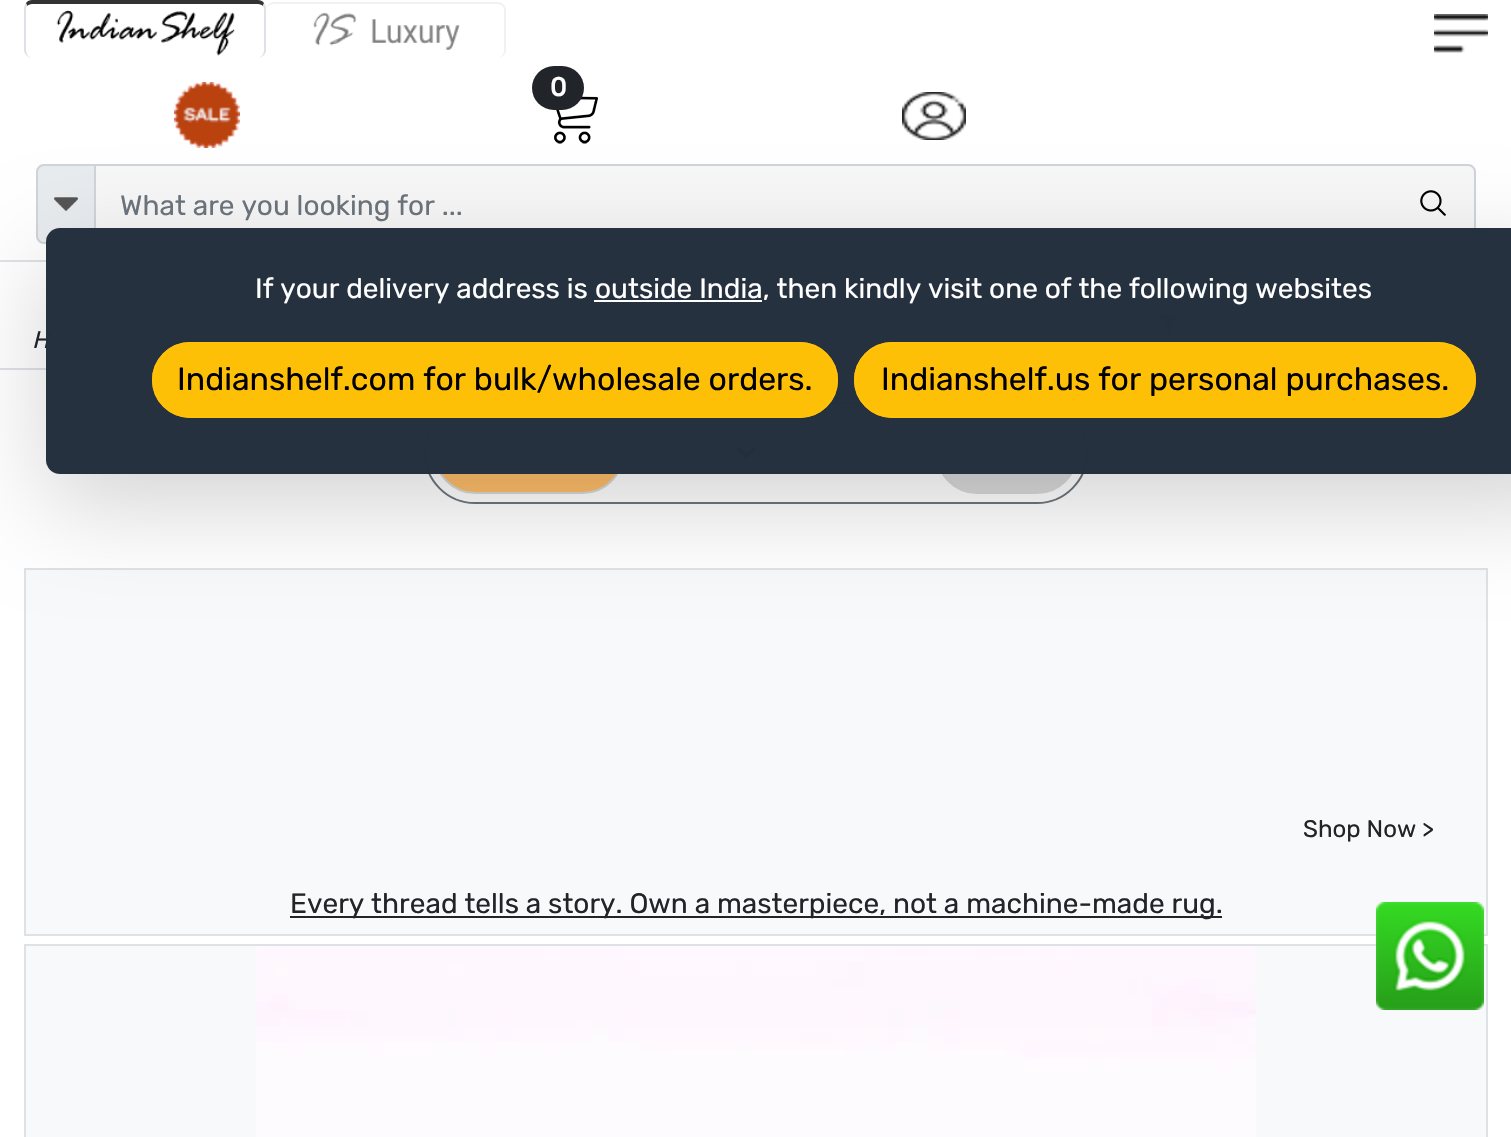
void draw(SkCanvas* c) {
SkPaint p;
p.setAntiAlias(true);
auto F=[&](const char* family, int weight, float size, bool italic = false){SkFontStyle style(weight, SkFontStyle::kNormal_Width,italic ? SkFontStyle::kItalic_Slant : SkFontStyle::kUpright_Slant);SkFont result(fontMgr->matchFamilyStyle(family, style), size);result.setSubpixel(true);return result;};
auto T=[&](const char* s, float x, float y, const SkFont& font){c->drawString(s, x, y, font, p);};
auto R=[&](float x, float y, float w, float h){c->drawRect(SkRect::MakeXYWH(x, y, w, h), p);};
auto Q=[&](float x, float y, float w, float h, float radius){c->drawRoundRect(SkRect::MakeXYWH(x, y, w, h), radius, radius, p);};
auto I=[&](const char* path, float x, float y, float w, float h){auto image = SkImages::DeferredFromEncodedData(SkData::MakeFromFileName(path));c->drawImageRect(image, SkRect::MakeXYWH(x, y, w, h), SkSamplingOptions());};
auto P=[&](const char* data, bool evenOdd = false){SkPath result = *SkParsePath::FromSVGString(data);if (evenOdd) result.setFillType(SkPathFillType::kEvenOdd);return result;};
c->clear(0xffffffff);
p.setColor(0xff333333);
c->drawPath(P("M32 0c-2 0-5 1-6 3l1 3c1-1 3-2 5-2h226c2 0 4 1 5 2l1-3c-1-2-4-3-6-3z"),p);
p.setColor(0xffdee2e6);
c->drawPath(P("M266 50v-42c0-2-1-3-2-5l-1 3l1 2v42c0 4-3 8-6 8c4 0 8-4 8-8z"),p);
c->drawPath(P("M24 8v42c0 4 4 8 8 8c-3 0-6-4-6-8v-42l1-2l-1-3c-1 2-2 3-2 5z"),p);
I("1.png",56,10,179,46);
p.setColor(0xffeff1f3);
c->drawPath(P("M274 2h224c4 0 8 4 8 8v40c0 4-4 8-8 8h-224c-4 0-8-4-8-8v-40c0-4 4-8 8-8zm0 2h224c3 0 6 3 6 6v40c0 4-3 8-6 8h-224c-4 0-8-4-8-8v-40c0-3 4-6 8-6z",true),p);
I("2.png",313,12,147,38);
I("3.png",1434,14,54,39);
I("4.png",174,82,66,66);
I("5.png",554,96,44,48);
p.setColor(0xff212529);
Q(532,66,52,44,22);
auto f1 = F("Rubik",700,26);
p.setColor(0xffffffff);
T("0",550,96,f1);
I("6.png",902,92,64,48);
p.setColor(0xfff7f7f7);
c->drawPath(P("M95 165h1373c4 0 7 3 7 7v64c0 4-3 7-7 7h-1373z"),p);
p.setStroke(true);
p.setStrokeWidth(2);
p.setColor(0xffced4da);
c->drawPath(P("M95 165h1373c4 0 7 3 7 7v64c0 4-3 7-7 7h-1373z"),p);
p.setStroke(false);
p.setColor(0xffe9ecef);
c->drawPath(P("M44 165h51v78h-51c-4 0-7-3-7-7v-64c0-4 3-7 7-7z"),p);
p.setStroke(true);
p.setColor(0xffced4da);
c->drawPath(P("M44 165h51v78h-51c-4 0-7-3-7-7v-64c0-4 3-7 7-7z"),p);
I("7.png",54,197,24,14);
auto f2 = F("Rubik",300,28);
p.setStroke(false);
p.setColor(0xff6c757d);
T("What are you looking for ...",120,215,f2);
I("8.png",1420,190,26,26);
p.setColor(0xfff8f9fa);
c->drawRect(SkRect::MakeXYWH(25,569,1462,366),p);
p.setStroke(true);
p.setColor(0xffdee2e6);
c->drawRect(SkRect::MakeXYWH(25,569,1462,366),p);
p.setStroke(false);
p.setColor(0xfff8f9fa);
c->drawRect(SkRect::MakeXYWH(25,945,1462,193),p);
p.setStroke(true);
p.setColor(0xffdee2e6);
c->drawRect(SkRect::MakeXYWH(25,945,1462,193),p);
I("9.png",1376,902,108,108);
p.setStroke(false);
R(0,260,1511,2);
I("10.png",1158,314,22,22);
R(0,368,1511,2);
p.setStroke(true);
p.setColor(0xff6c757d);
c->drawRoundRect(SkRect::MakeXYWH(425,403,662,100),50,50,p);
p.setStroke(false);
p.setColor(0xffffbe69);
c->drawRoundRect(SkRect::MakeXYWH(435,413,188,80),40,40,p);
p.setStroke(true);
p.setColor(0xffd9d9d9);
c->drawRoundRect(SkRect::MakeXYWH(435,413,188,80),40,40,p);
p.setStrokeWidth(4);
p.setColor(0xff000000);
c->drawPath(P("M738.5 448.5l8 8l8-8"),p);
p.setStroke(false);
p.setColor(0xffdadada);
c->drawRoundRect(SkRect::MakeXYWH(937,413,140,80),40,40,p);
p.setStroke(true);
p.setStrokeWidth(2);
p.setColor(0xffd9d9d9);
c->drawRoundRect(SkRect::MakeXYWH(937,413,140,80),40,40,p);
c->save();
c->clipPath(P("M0 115h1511v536h-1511zm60 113h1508c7.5 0 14 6.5 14 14v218c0 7.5-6.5 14-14 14h-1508c-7.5 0-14-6.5-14-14v-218c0-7.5 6.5-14 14-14z",true),true);
p.setStroke(false);
p.setColor(0x2b000000);
p.setMaskFilter(SkMaskFilter::MakeBlur(kNormal_SkBlurStyle, 48));
c->drawRoundRect(SkRect::MakeXYWH(46,260,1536,246),14,14,p);
p.setMaskFilter(nullptr);
c->restore();
auto f3 = F("Rubik",300,24,true);
p.setColor(0xff212529);
T("H",32,348,f3);
p.setColor(0xfc232f3e);
Q(46,228,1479,246,14);
p.setColor(0xffffffff);
T("If your delivery address is",255,298,f2);
R(594,300,168,2);
T("outside India, then kindly visit one of the following websites",595,298,f2);
p.setColor(0xfffec007);
Q(152,342,686,76,38);
p.setStroke(true);
p.setColor(0xfcffc107);
c->drawRoundRect(SkRect::MakeXYWH(153,343,684,74),37,37,p);
auto f4 = F("Rubik",300,32);
p.setStroke(false);
p.setColor(0xff020100);
T("Indianshelf.com for bulk/wholesale orders.",177,390,f4);
p.setColor(0xfffec007);
Q(854,342,622,76,38);
p.setStroke(true);
p.setColor(0xfcffc107);
c->drawRoundRect(SkRect::MakeXYWH(855,343,620,74),37,37,p);
p.setStroke(false);
p.setColor(0xff020100);
T("Indianshelf.us for personal purchases.",881,390,f4);
auto f5 = F("Rubik",300,24);
p.setColor(0xff212529);
T("Shop Now >",1303,837,f5);
R(290,916,932,2);
T("Every thread tells a story. Own a masterpiece, not a machine-made rug.",290,913,f2);
I("11.png",256,946,1000,191);
}
